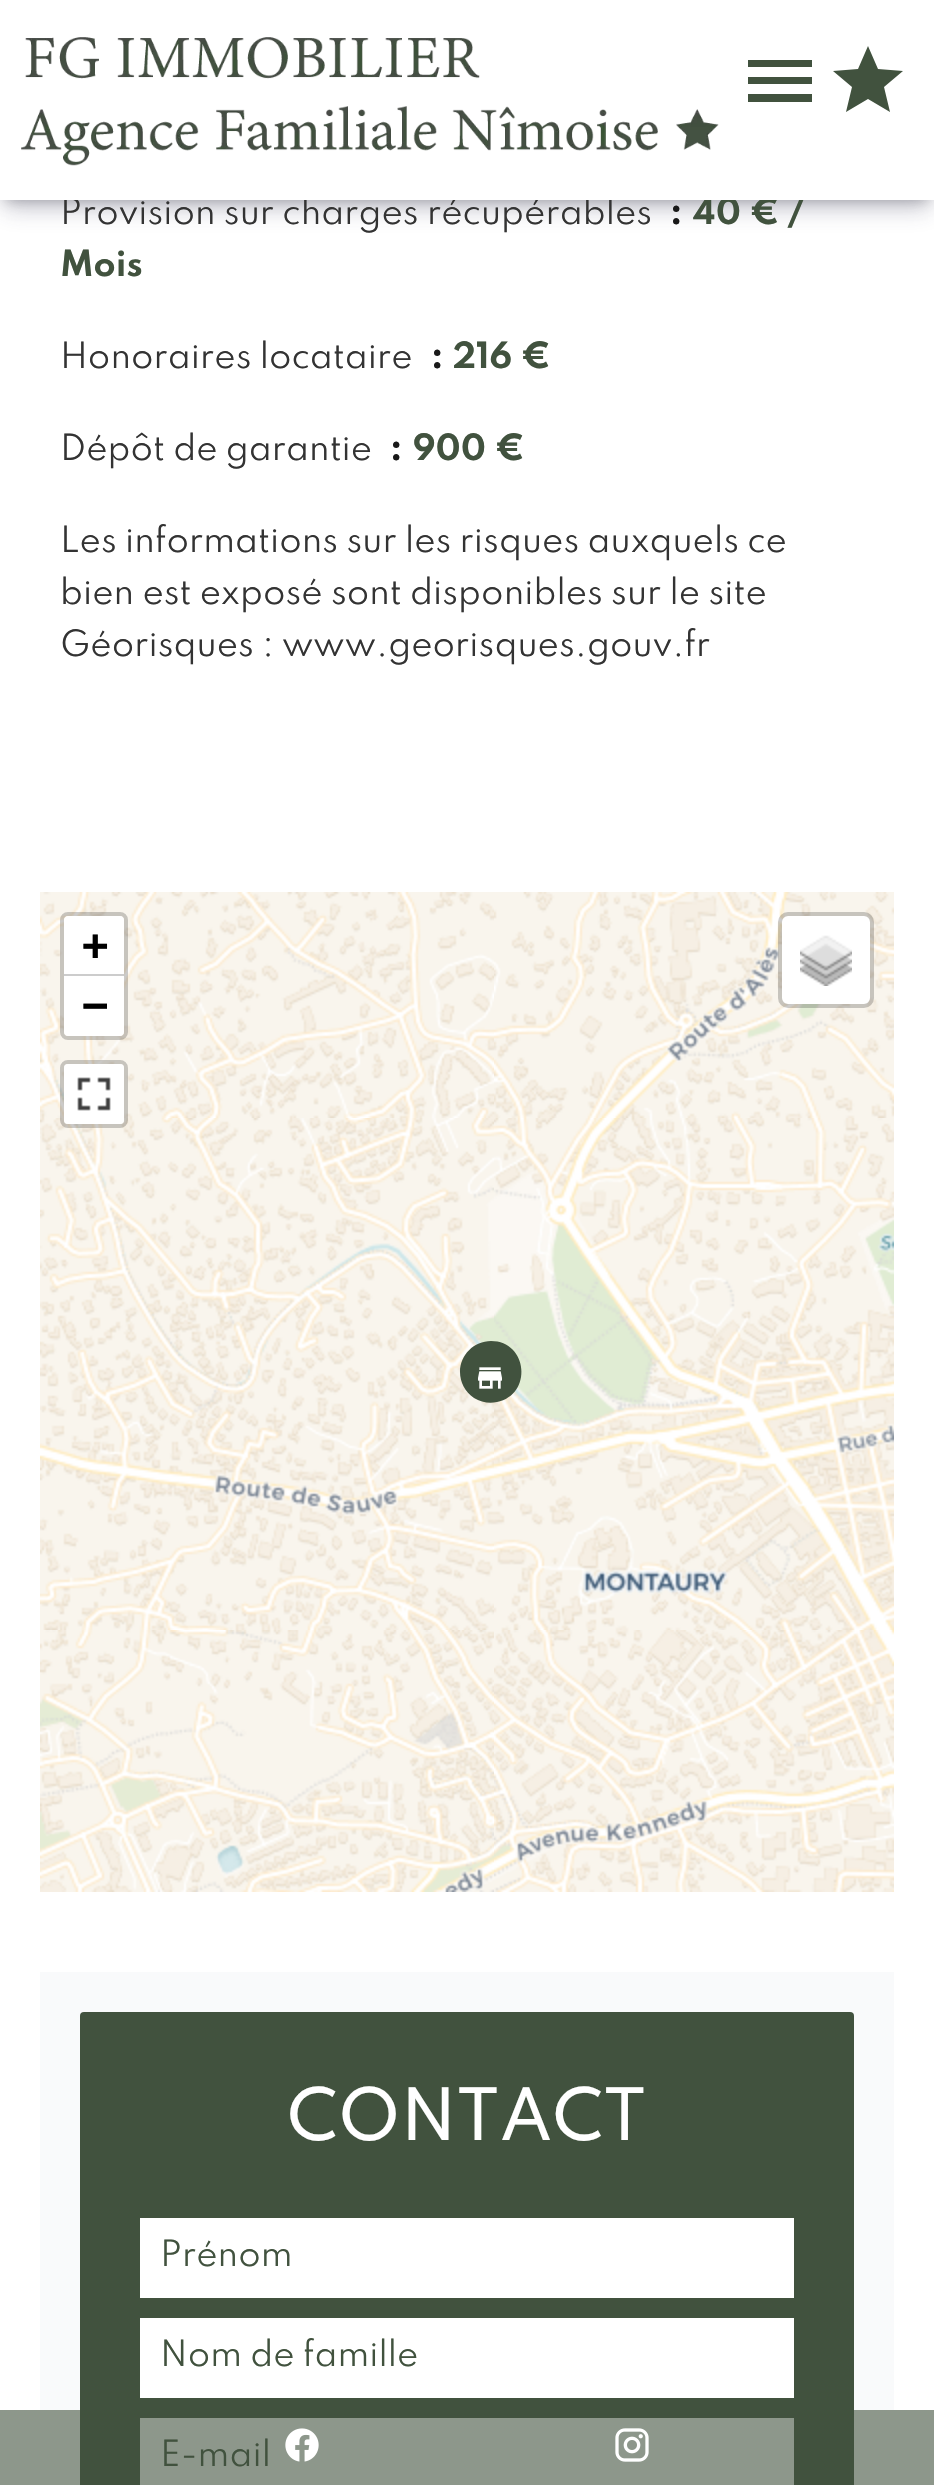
void draw(SkCanvas* c) {
SkPaint p;
p.setAntiAlias(true);
auto F=[&](const char* family, int weight, float size, bool italic = false){SkFontStyle style(weight, SkFontStyle::kNormal_Width,italic ? SkFontStyle::kItalic_Slant : SkFontStyle::kUpright_Slant);SkFont result(fontMgr->matchFamilyStyle(family, style), size);result.setSubpixel(true);return result;};
auto T=[&](const char* s, float x, float y, const SkFont& font){c->drawString(s, x, y, font, p);};
auto R=[&](float x, float y, float w, float h){c->drawRect(SkRect::MakeXYWH(x, y, w, h), p);};
auto Q=[&](float x, float y, float w, float h, float radius){c->drawRoundRect(SkRect::MakeXYWH(x, y, w, h), radius, radius, p);};
auto I=[&](const char* path, float x, float y, float w, float h){auto image = SkImages::DeferredFromEncodedData(SkData::MakeFromFileName(path));c->drawImageRect(image, SkRect::MakeXYWH(x, y, w, h), SkSamplingOptions());};
auto P=[&](const char* data, bool evenOdd = false){SkPath result = *SkParsePath::FromSVGString(data);if (evenOdd) result.setFillType(SkPathFillType::kEvenOdd);return result;};
c->clear(0xffffffff);
p.setColor(0xff8d978b);
R(0,2410,934,75);
p.setColor(0x4d000000);
p.setMaskFilter(SkMaskFilter::MakeBlur(kNormal_SkBlurStyle, 7));
c->drawRect(SkRect::MakeXYWH(6,12,922,188),p);
p.setMaskFilter(nullptr);
p.setColor(0x4032325d);
p.setMaskFilter(SkMaskFilter::MakeBlur(kNormal_SkBlurStyle, 12));
c->drawRect(SkRect::MakeXYWH(4,16,926,192),p);
p.setMaskFilter(nullptr);
auto f1 = F("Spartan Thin",400,32);
p.setColor(0xff333333);
T("Provision sur charges récupérables",60,224,f1);
auto f2 = F("Spartan Thin",700,32);
p.setColor(0xff41523e);
T("40 € /",693,224,f2);
p.setColor(0xffffffff);
R(0,0,934,200);
I("1.png",21,37,698,129);
p.setColor(0xff41523e);
c->drawPath(P("M748 60h64v7h-64zm0 17h64v7h-64zm0 17h64v8h-64z"),p);
c->drawPath(P("M868 99l22 13l-6-25l19-16l-25-2l-10-23l-10 23l-25 2l19 16l-6 25z"),p);
p.setColor(0xff191919);
T(":",670,224,f2);
p.setColor(0xff41523e);
T("Mois",60,276,f2);
p.setColor(0xff333333);
T("Honoraires locataire",60,368,f1);
p.setColor(0xff191919);
T(":",431,368,f2);
p.setColor(0xff41523e);
T("216 €",453,368,f2);
p.setColor(0xff333333);
T("Dépôt de garantie",60,460,f1);
p.setColor(0xff191919);
T(":",390,460,f2);
p.setColor(0xff41523e);
T("900 €",413,460,f2);
p.setColor(0xff333333);
T("Les informations sur les risques auxquels ce",60,552,f1);
T("bien est exposé sont disponibles sur le site",60,604,f1);
T("Géorisques : www.georisques.gouv.fr",60,656,f1);
I("2.png",40,892,454,226);
I("3.png",494,892,400,226);
I("4.png",40,1118,454,512);
I("5.png",494,1118,400,512);
I("6.png",40,1630,454,262);
I("7.png",494,1630,400,262);
p.setColor(0xff41523e);
c->drawPath(P("M491 1341c-17 0-31 14-31 31c0 10 5 20 14 26c7 4 15 6 23 4c36-7 31-61-6-61z"),p);
I("8.png",478,1367,24,22);
p.setStroke(true);
p.setStrokeWidth(4);
p.setColor(0x33000000);
c->drawRoundRect(SkRect::MakeXYWH(62,914,64,124),6,6,p);
p.setStroke(false);
p.setColor(0xffffffff);
c->drawPath(P("M68 916h52c2 0 4 2 4 4v56h-60v-56c0-2 2-4 4-4z"),p);
p.setColor(0xffcccccc);
R(64,974,60,2);
auto f3 = F("DejaVu Sans Mono",700,44);
p.setColor(0xff000000);
T("+",82,960,f3);
p.setColor(0xffffffff);
c->drawPath(P("M64 976h60v56c0 2-2 4-4 4h-52c-2 0-4-2-4-4z"),p);
p.setColor(0xff000000);
T("−",82,1020,f3);
p.setStroke(true);
p.setColor(0x33000000);
c->drawRoundRect(SkRect::MakeXYWH(62,1062,64,64),6,6,p);
p.setStroke(false);
p.setColor(0xffffffff);
Q(64,1064,60,60,4);
I("9.png",77,1077,34,34);
Q(782,916,88,88,6);
p.setStroke(true);
p.setColor(0x33000000);
c->drawRoundRect(SkRect::MakeXYWH(780,914,92,92),8,8,p);
I("10.png",800,935,52,51);
p.setStroke(false);
p.setColor(0xfff9fafb);
R(40,1972,854,438);
p.setColor(0xff41523e);
Q(80,2012,774,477,4);
auto f4 = F("Spartan Thin",500,64);
p.setColor(0xffffffff);
T("CONTACT",287,2140,f4);
R(140,2218,654,80);
p.setColor(0xff41523e);
T("Prénom",160,2266,f1);
p.setColor(0xffffffff);
R(140,2318,654,80);
p.setColor(0xff41523e);
T("Nom de famille",160,2366,f1);
p.setColor(0xff8d978b);
R(140,2418,654,67);
p.setColor(0xff41523e);
T("E-mail",160,2466,f1);
I("11.png",285,2428,34,34);
I("12.png",615,2428,34,34);
}
